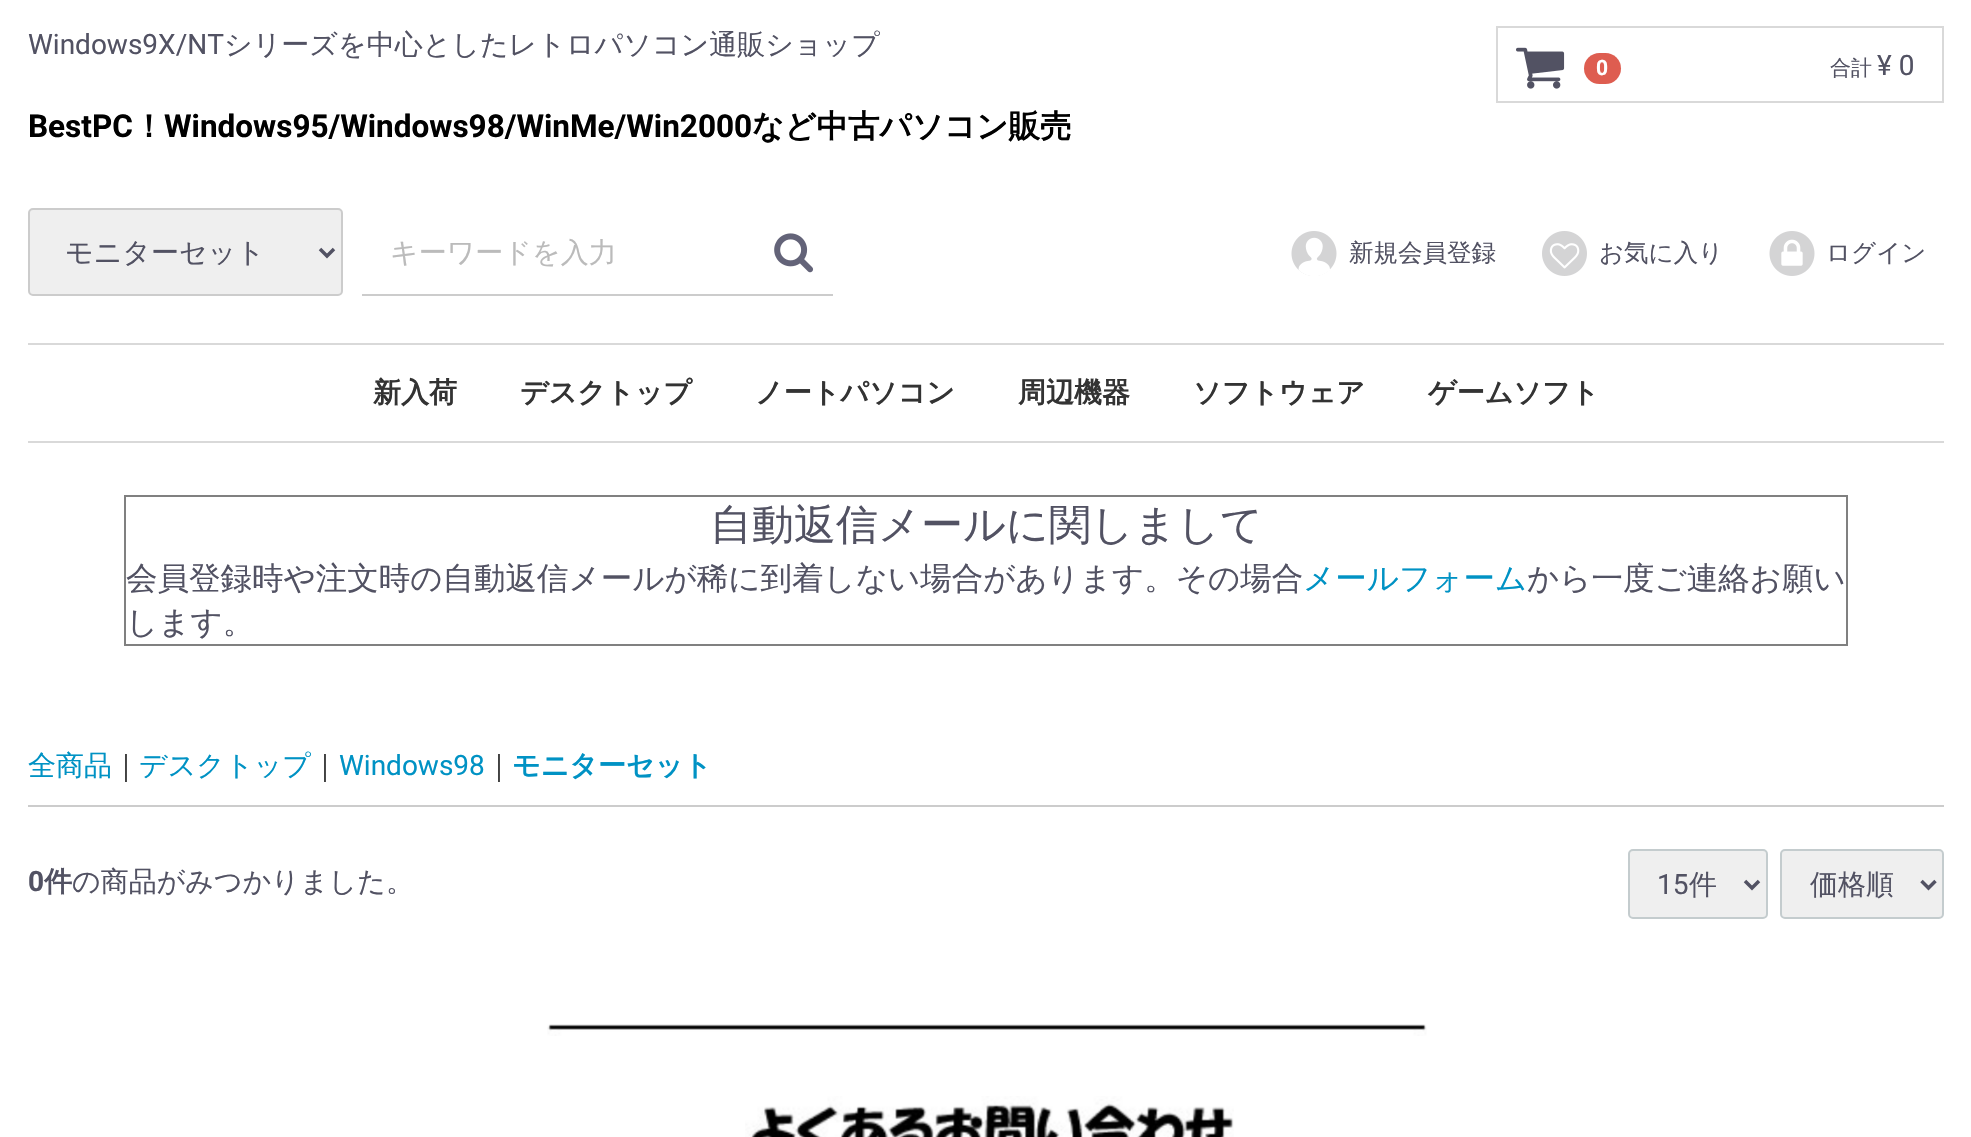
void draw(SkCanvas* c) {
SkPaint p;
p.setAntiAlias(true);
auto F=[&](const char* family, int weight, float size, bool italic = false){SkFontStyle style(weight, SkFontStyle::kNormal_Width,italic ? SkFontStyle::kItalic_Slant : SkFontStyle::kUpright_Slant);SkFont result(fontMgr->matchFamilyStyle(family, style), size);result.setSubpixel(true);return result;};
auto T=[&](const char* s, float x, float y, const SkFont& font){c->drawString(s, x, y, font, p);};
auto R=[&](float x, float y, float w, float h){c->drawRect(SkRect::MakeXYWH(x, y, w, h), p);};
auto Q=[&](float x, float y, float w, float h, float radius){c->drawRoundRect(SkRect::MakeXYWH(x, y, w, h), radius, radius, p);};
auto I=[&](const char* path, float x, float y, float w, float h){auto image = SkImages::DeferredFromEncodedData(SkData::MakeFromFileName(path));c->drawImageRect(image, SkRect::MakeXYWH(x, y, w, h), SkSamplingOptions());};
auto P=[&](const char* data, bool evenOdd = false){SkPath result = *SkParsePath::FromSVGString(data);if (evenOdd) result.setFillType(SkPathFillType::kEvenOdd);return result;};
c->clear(0xffffffff);
auto f1 = F("Roboto",400,28);
p.setColor(0xff525263);
T("Windows9X/NT",28,54,f1);
auto f2 = F("WenQuanYi Zen Hei",500,28);
T("シリーズを中心としたレトロパソコン通販ショップ",224,54,f2);
auto f3 = F("Roboto",700,31.5);
p.setColor(0xff000000);
T("BestPC",28,137,f3);
auto f4 = F("WenQuanYi Zen Hei",700,31.5);
T("！",133,137,f4);
T("Windows95/Windows98/WinMe/Win2000",164,137,f3);
T("など中古パソコン販売",752,137,f4);
p.setStroke(true);
p.setStrokeWidth(2);
p.setColor(0xffd9d9d9);
c->drawRect(SkRect::MakeXYWH(1497,27,446,75),p);
I("1.png",1516,47,49,42);
p.setStroke(false);
p.setColor(0xffde5d50);
Q(1584,53,37,31,15.5);
auto f5 = F("Roboto",700,21);
p.setColor(0xffffffff);
T("0",1596,75,f5);
auto f6 = F("WenQuanYi Zen Hei",500,21);
p.setColor(0xff525263);
T("合計",1830,75,f6);
T("¥ 0",1877,75,f1);
p.setColor(0xffefefef);
c->drawRoundRect(SkRect::MakeXYWH(29,209,313,86),4,4,p);
p.setStroke(true);
p.setColor(0xffcccccc);
c->drawRoundRect(SkRect::MakeXYWH(29,209,313,86),4,4,p);
p.setStrokeWidth(3.5);
p.setColor(0xff525263);
c->drawPath(P("M320 249l7 7l7-7"),p);
p.setStroke(false);
T("モニターセット",65,262,f2);
p.setColor(0xffcccccc);
R(362,294,471,2);
p.setColor(0xffbbbbbb);
T("キーワードを入力",390,262,f2);
I("2.png",774,233,40,40);
I("3.png",1291,231,46,45);
auto f7 = F("WenQuanYi Zen Hei",500,24.5);
p.setColor(0xff525263);
T("新規会員登録",1349,261,f7);
I("4.png",1542,231,45,45);
T("お気に入り",1599,261,f7);
I("5.png",1769,231,46,45);
T("ログイン",1826,261,f7);
p.setColor(0xffd9d9d9);
R(28,343,1916,2);
R(28,441,1916,2);
auto f8 = F("WenQuanYi Zen Hei",700,28);
p.setColor(0xff333333);
T("新入荷",373,402,f8);
T("デスクトップ",520,402,f8);
T("ノートパソコン",755,402,f8);
T("周辺機器",1018,402,f8);
T("ソフトウェア",1193,402,f8);
T("ゲームソフト",1428,402,f8);
p.setColor(0xff808080);
R(124,495,1724,2);
R(1846,495,2,151);
R(124,644,1724,2);
R(124,495,2,151);
auto f9 = F("WenQuanYi Zen Hei",500,42);
p.setColor(0xff525263);
T("自動返信メールに関しまして",710,539,f9);
auto f10 = F("WenQuanYi Zen Hei",500,31.5);
T("会員登録時や注文時の自動返信メールが稀に到着しない場合があります。その場合",126,589,f10);
p.setColor(0xff0092c4);
T("メールフォーム",1303,589,f10);
p.setColor(0xff525263);
T("から一度ご連絡お願い",1527,589,f10);
T("します。",126,633,f10);
p.setColor(0xffcccccc);
R(28,805,1916,2);
p.setColor(0xff0092c4);
T("全商品",28,775,f2);
p.setColor(0xff333333);
T("｜",112,775,f2);
p.setColor(0xff0092c4);
T("デスクトップ",139,775,f2);
p.setColor(0xff333333);
T("｜",311,775,f2);
p.setColor(0xff0092c4);
T("Windows98",339,775,f1);
p.setColor(0xff333333);
T("｜",485,775,f2);
p.setColor(0xff0092c4);
T("モニターセット",512,775,f8);
auto f11 = F("Roboto",700,28);
p.setColor(0xff525263);
T("0",28,891,f11);
T("件",44,891,f8);
T("の商品がみつかりました。",72,891,f2);
p.setColor(0xffefefef);
c->drawRoundRect(SkRect::MakeXYWH(1629,850,138,68),4,4,p);
p.setStroke(true);
p.setStrokeWidth(2);
p.setColor(0xffc4ccce);
c->drawRoundRect(SkRect::MakeXYWH(1629,850,138,68),4,4,p);
p.setStrokeWidth(3.5);
p.setColor(0xff525263);
c->drawPath(P("M1745 881l7 7l7-7"),p);
p.setStroke(false);
T("15",1657,894,f1);
T("件",1689,894,f2);
p.setColor(0xffefefef);
c->drawRoundRect(SkRect::MakeXYWH(1781,850,162,68),4,4,p);
p.setStroke(true);
p.setStrokeWidth(2);
p.setColor(0xffc4ccce);
c->drawRoundRect(SkRect::MakeXYWH(1781,850,162,68),4,4,p);
p.setStrokeWidth(3.5);
p.setColor(0xff525263);
c->drawPath(P("M1921.5 881l7 7l7-7"),p);
p.setStroke(false);
T("価格順",1810,894,f2);
I("6.png",547,1024,880,12);
I("7.png",745,1096,489,41);
}
